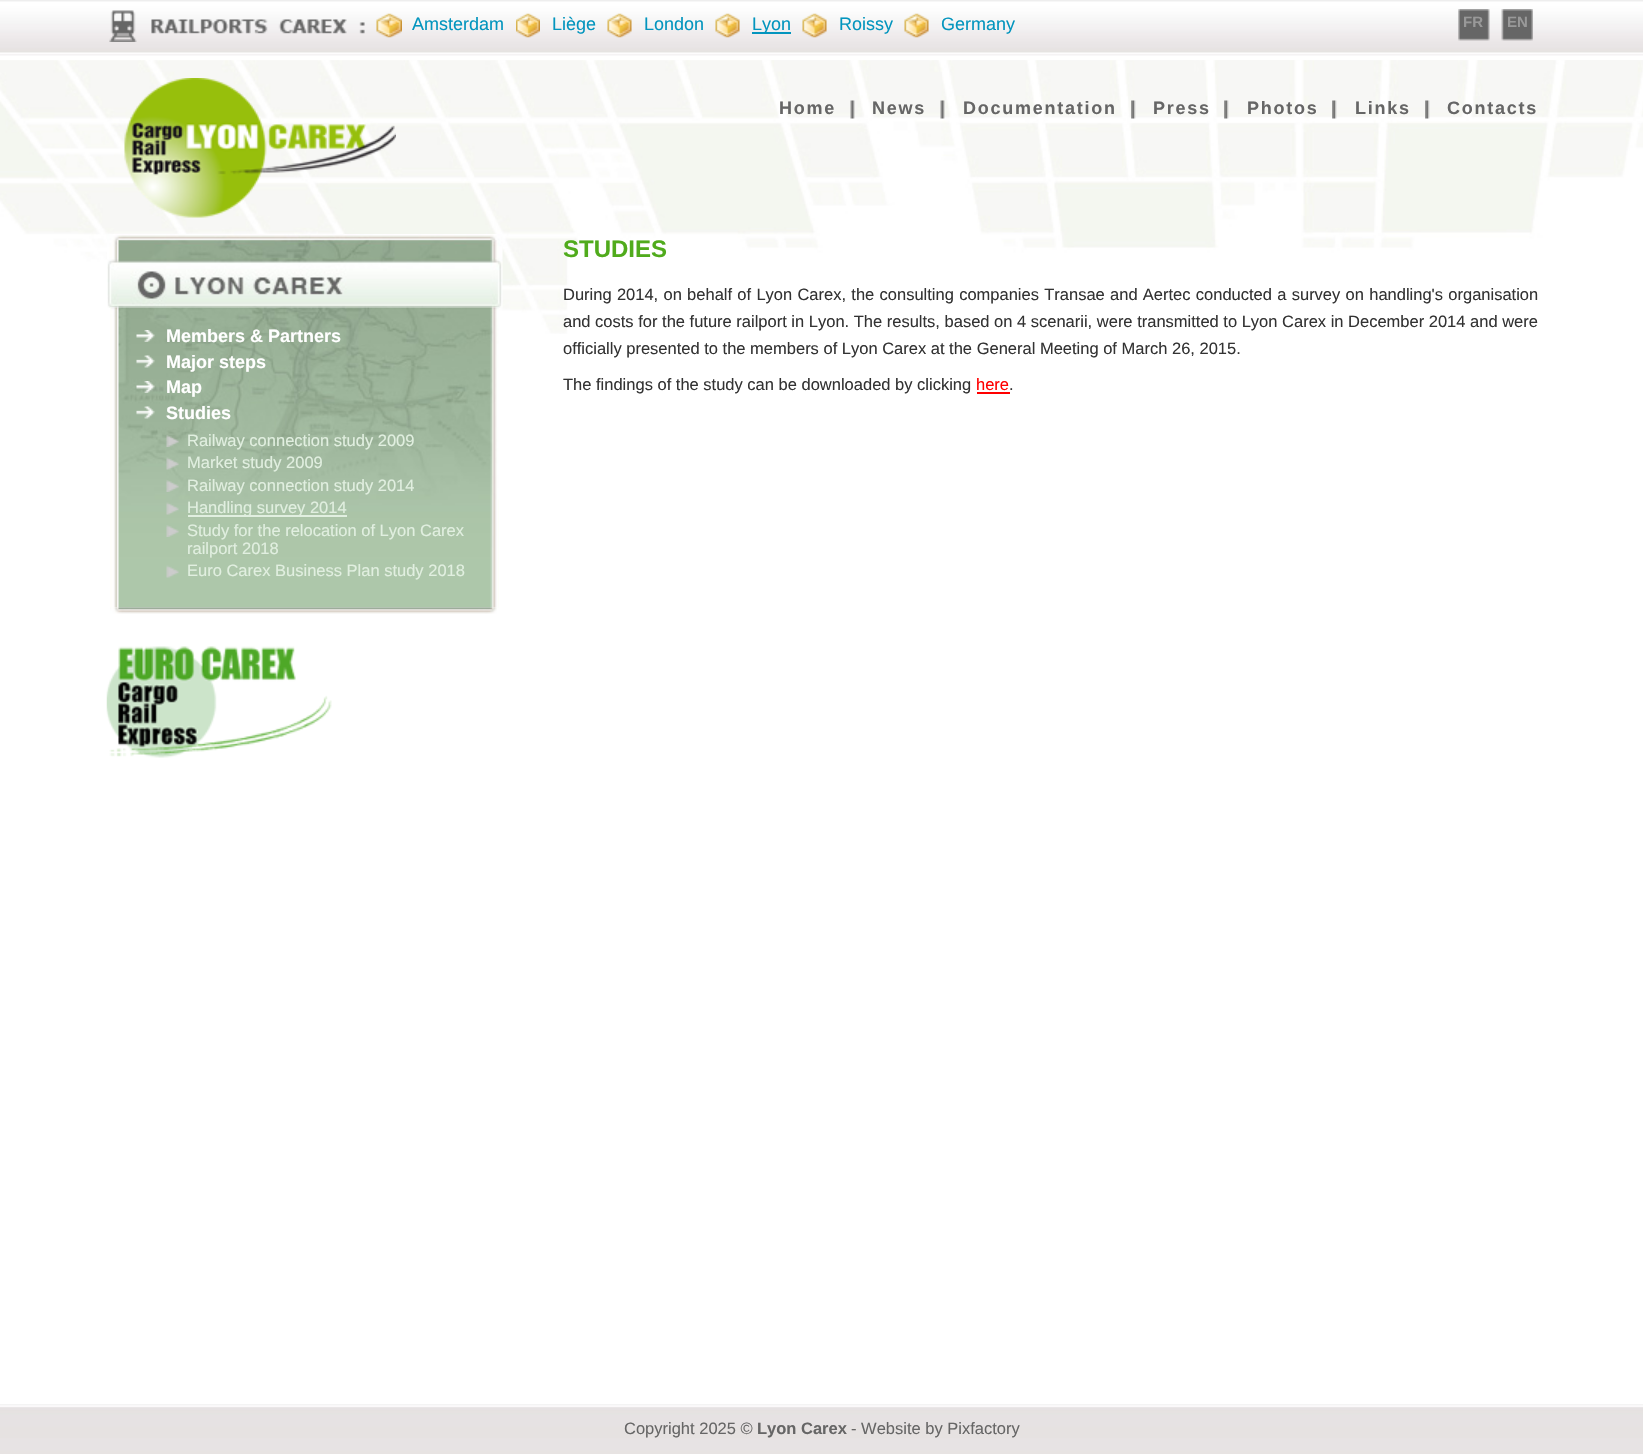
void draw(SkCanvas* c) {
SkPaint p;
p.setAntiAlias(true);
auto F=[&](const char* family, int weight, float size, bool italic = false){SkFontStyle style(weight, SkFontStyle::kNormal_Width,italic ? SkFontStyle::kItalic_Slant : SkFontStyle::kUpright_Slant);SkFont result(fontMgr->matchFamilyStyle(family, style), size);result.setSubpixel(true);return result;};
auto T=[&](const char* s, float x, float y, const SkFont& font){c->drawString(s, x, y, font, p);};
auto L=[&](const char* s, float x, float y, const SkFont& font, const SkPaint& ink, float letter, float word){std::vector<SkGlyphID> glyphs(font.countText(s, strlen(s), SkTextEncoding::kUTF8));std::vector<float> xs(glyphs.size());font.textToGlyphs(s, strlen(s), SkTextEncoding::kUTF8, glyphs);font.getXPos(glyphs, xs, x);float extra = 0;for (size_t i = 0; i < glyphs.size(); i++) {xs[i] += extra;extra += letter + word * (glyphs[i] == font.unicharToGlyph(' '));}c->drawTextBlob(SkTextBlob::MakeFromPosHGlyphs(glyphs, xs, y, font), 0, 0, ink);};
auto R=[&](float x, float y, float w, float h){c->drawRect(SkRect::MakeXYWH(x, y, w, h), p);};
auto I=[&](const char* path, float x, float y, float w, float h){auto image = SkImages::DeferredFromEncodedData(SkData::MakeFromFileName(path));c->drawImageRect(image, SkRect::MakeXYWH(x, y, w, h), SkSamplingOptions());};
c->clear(0xffffffff);
I("1.png",0,60,1643,274);
I("2.png",0,0,1643,60);
I("3.png",109,10,256,32);
I("4.png",376,13,26,25);
auto f1 = F("Liberation Sans",400,18);
p.setColor(0xff0395be);
T("Amsterdam",412,30,f1);
I("5.png",516,13,24,25);
T("Liège",552,30,f1);
I("6.png",607,13,25,25);
T("London",644,30,f1);
I("6.png",715,13,25,25);
R(752,32,39,2);
T("Lyon",752,30,f1);
I("7.png",802,13,25,25);
T("Roissy",839,30,f1);
I("7.png",904,13,25,25);
T("Germany",941,30,f1);
I("8.png",1458,9,32,32);
auto f2 = F("Liberation Sans",700,15);
p.setColor(0xff999999);
T("FR",1463,27,f2);
I("9.png",1501,9,32,32);
T("EN",1507,27,f2);
I("10.png",124,78,272,140);
I("11.png",850,100,5,19);
auto f3 = F("Liberation Sans",700,18);
p.setColor(0xff666666);
L("Home",779,114,f3,p,1.75,0);
I("12.png",940,100,5,19);
L("News",872,114,f3,p,1.75,0);
I("13.png",1131,100,5,19);
L("Documentation",963,114,f3,p,1.75,0);
I("14.png",1224,100,5,19);
L("Press",1153,114,f3,p,1.75,0);
I("14.png",1332,100,5,19);
L("Photos",1247,114,f3,p,1.75,0);
I("15.png",1425,100,5,19);
L("Links",1355,114,f3,p,1.75,0);
L("Contacts",1447,114,f3,p,1.75,0);
I("16.png",107,234,396,74);
I("17.png",110,307,389,301);
I("18.png",136,330,19,12);
p.setColor(0xffffffff);
T("Members & Partners",166,342,f3);
I("19.png",136,355,19,13);
T("Major steps",166,368,f3);
I("20.png",136,381,19,12);
T("Map",166,393,f3);
I("21.png",136,406,19,13);
T("Studies",166,419,f3);
I("22.png",166,435,13,12);
auto f4 = F("Liberation Sans",400,16.5);
p.setColor(0xffe1efe0);
T("Railway connection study 2009",187,446,f4);
I("23.png",166,457,13,13);
T("Market study 2009",187,468,f4);
I("24.png",166,480,13,12);
T("Railway connection study 2014",187,491,f4);
I("25.png",166,502,13,13);
R(188,515,159,2);
T("Handling survey 2014",187,513,f4);
I("26.png",166,525,13,12);
T("Study for the relocation of Lyon Carex",187,536,f4);
T("railport 2018",187,554,f4);
I("27.png",166,565,13,13);
T("Euro Carex Business Plan study 2018",187,576,f4);
I("28.png",110,607,387,7);
I("29.png",106,646,226,112);
auto f5 = F("Liberation Sans",700,24);
p.setColor(0xff50ab1c);
T("STUDIES",563,257,f5);
p.setColor(0xff333333);
L("During 2014, on behalf of Lyon Carex, the consulting companies Transae and Aertec conducted a survey on handling's organisation",563,300,f4,p,0,.7);
T("and costs for the future railport in Lyon. The results, based on 4 scenarii, were transmitted to Lyon Carex in December 2014 and were",563,327,f4);
T("officially presented to the members of Lyon Carex at the General Meeting of March 26, 2015.",563,354,f4);
T("The findings of the study can be downloaded by clicking",563,390,f4);
p.setColor(0xffff0000);
T("here",976,390,f4);
R(977,392,33,2);
p.setColor(0xff333333);
T(".",1009,390,f4);
I("30.png",0,1404,1643,50);
p.setColor(0xff666666);
T("Copyright 2025 ©",624,1434,f4);
auto f6 = F("Liberation Sans",700,16.5);
T("Lyon Carex",757,1434,f6);
T("- Website by Pixfactory",851,1434,f4);
}
